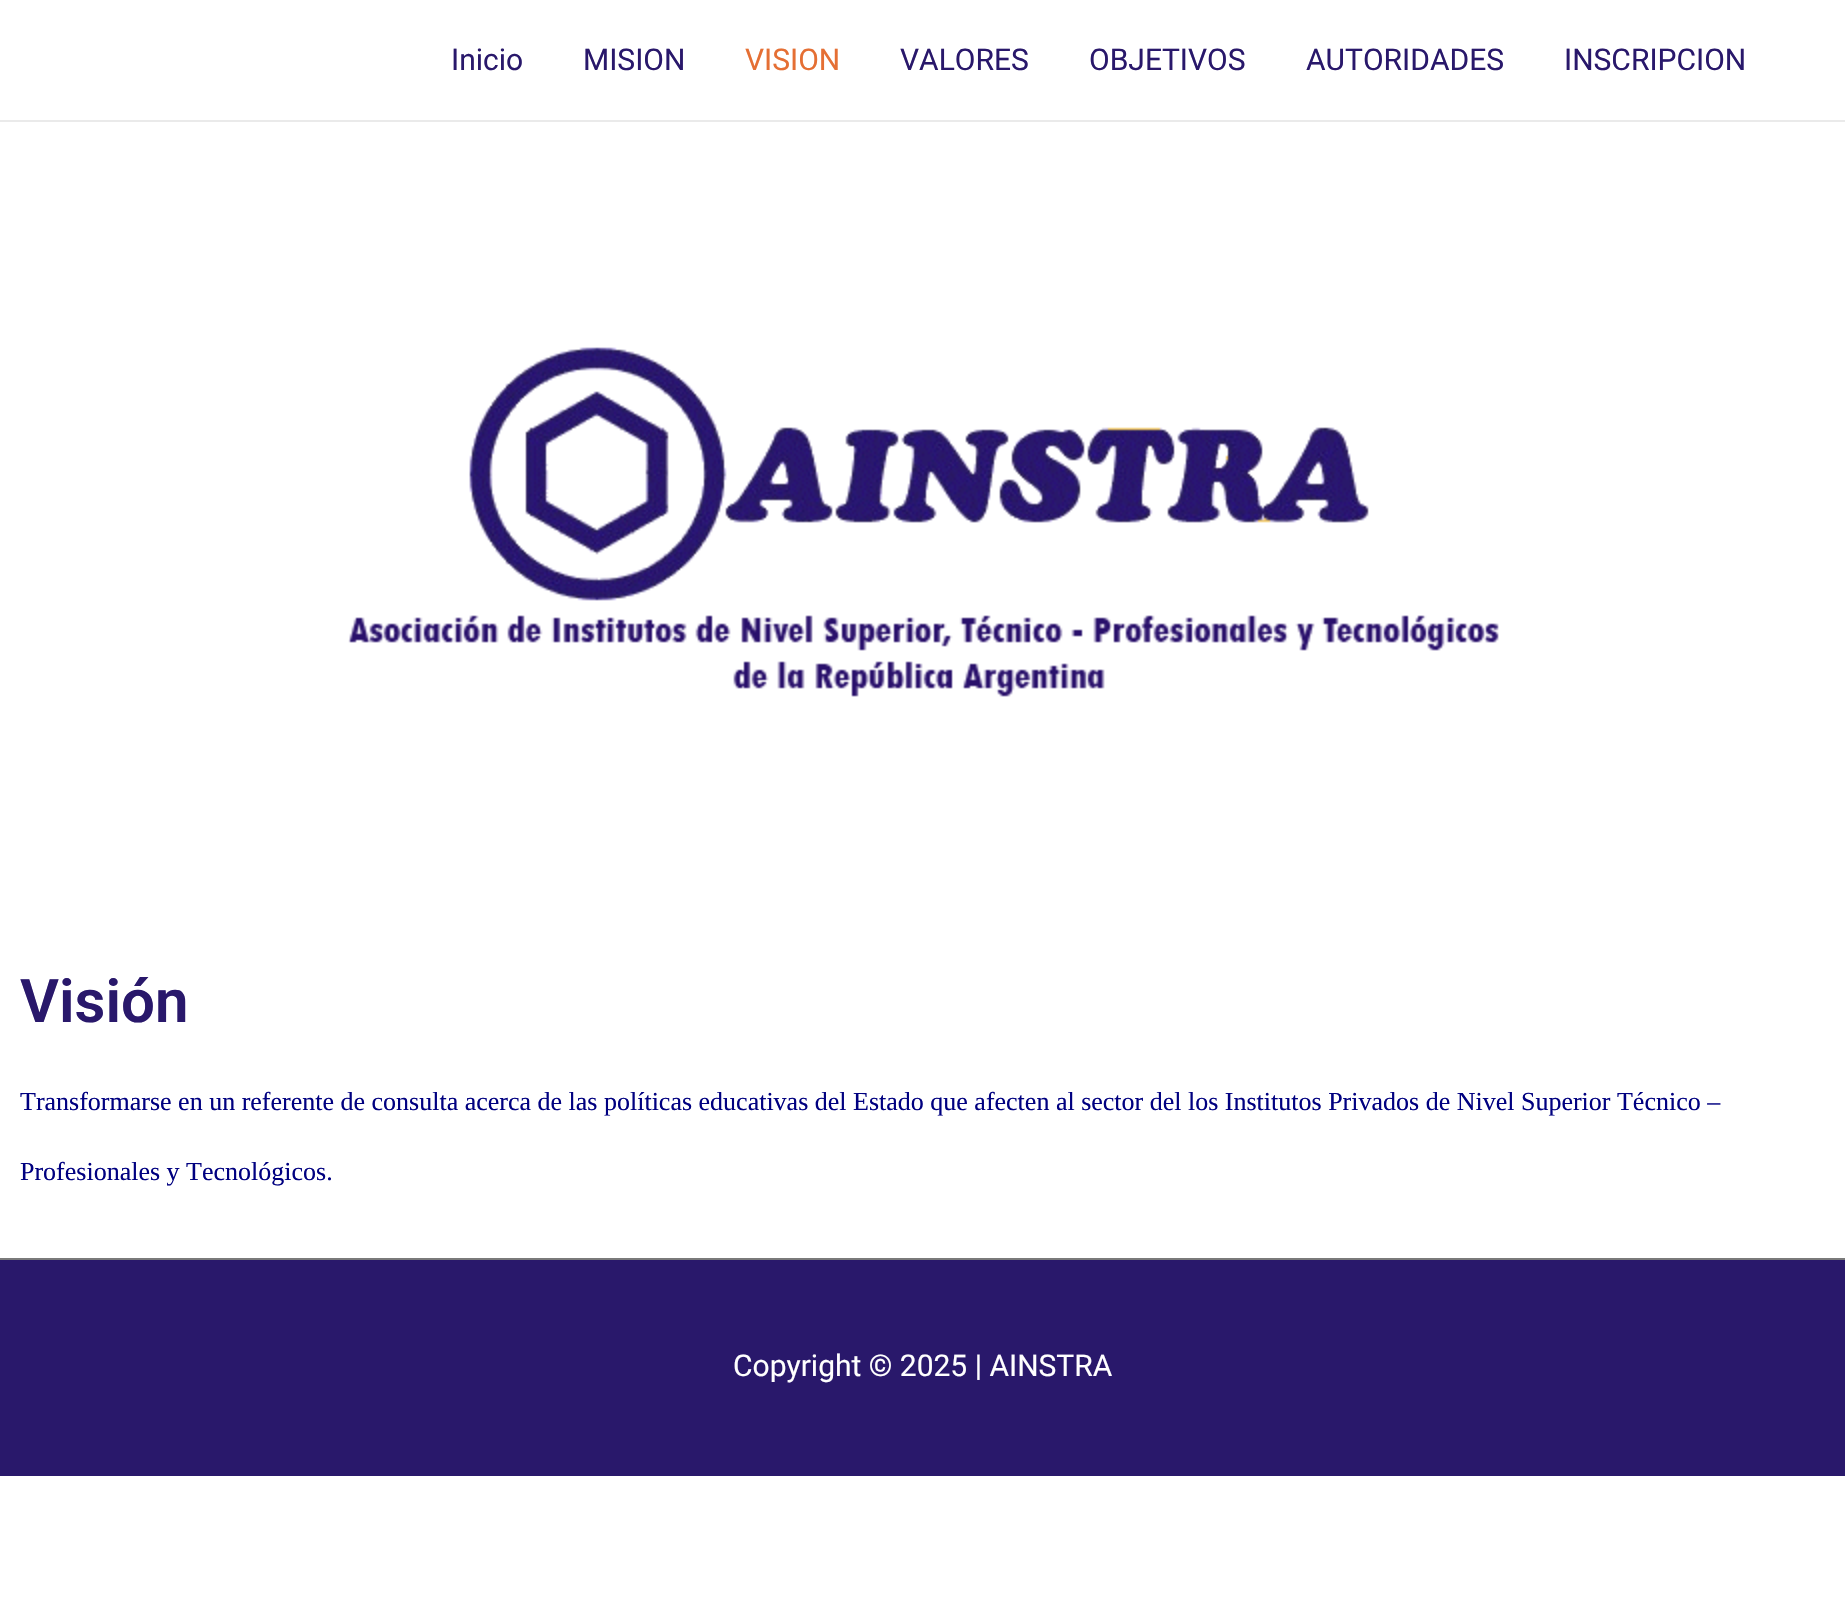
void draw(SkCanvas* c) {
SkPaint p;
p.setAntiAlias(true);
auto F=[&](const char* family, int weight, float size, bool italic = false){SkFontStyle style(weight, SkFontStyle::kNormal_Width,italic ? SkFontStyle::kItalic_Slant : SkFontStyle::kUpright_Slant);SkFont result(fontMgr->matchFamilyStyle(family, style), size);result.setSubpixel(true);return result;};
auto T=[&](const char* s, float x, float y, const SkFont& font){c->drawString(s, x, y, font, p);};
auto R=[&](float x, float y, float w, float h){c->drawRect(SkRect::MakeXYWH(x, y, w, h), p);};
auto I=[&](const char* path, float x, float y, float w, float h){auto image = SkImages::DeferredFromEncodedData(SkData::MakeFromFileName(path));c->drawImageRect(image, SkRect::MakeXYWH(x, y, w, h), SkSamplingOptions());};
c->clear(0xffffffff);
p.setColor(0xffeaeaea);
R(0,120,1845,2);
auto f1 = F("Roboto",400,30);
p.setColor(0xff29186b);
T("Inicio",451,70,f1);
T("MISION",583,70,f1);
p.setColor(0xffe56f34);
T("VISION",745,70,f1);
p.setColor(0xff29186b);
T("VALORES",900,70,f1);
T("OBJETIVOS",1089,70,f1);
T("AUTORIDADES",1306,70,f1);
T("INSCRIPCION",1564,70,f1);
I("1.png",348,347,1151,350);
auto f2 = F("Roboto",600,60);
T("Visión",20,1022,f2);
auto f3 = F("Liberation Serif",400,26);
p.setColor(0xff000080);
T("Transformarse en un referente de consulta acerca de las políticas educativas del Estado que afecten al sector del los Institutos Privados de Nivel Superior Técnico –",20,1110,f3);
T("Profesionales y Tecnológicos.",20,1180,f3);
p.setColor(0xff7a7a7a);
R(0,1258,1845,2);
p.setColor(0xff29186b);
R(0,1260,1845,216);
p.setColor(0xffffffff);
T("Copyright © 2025 | AINSTRA",733,1376,f1);
}
